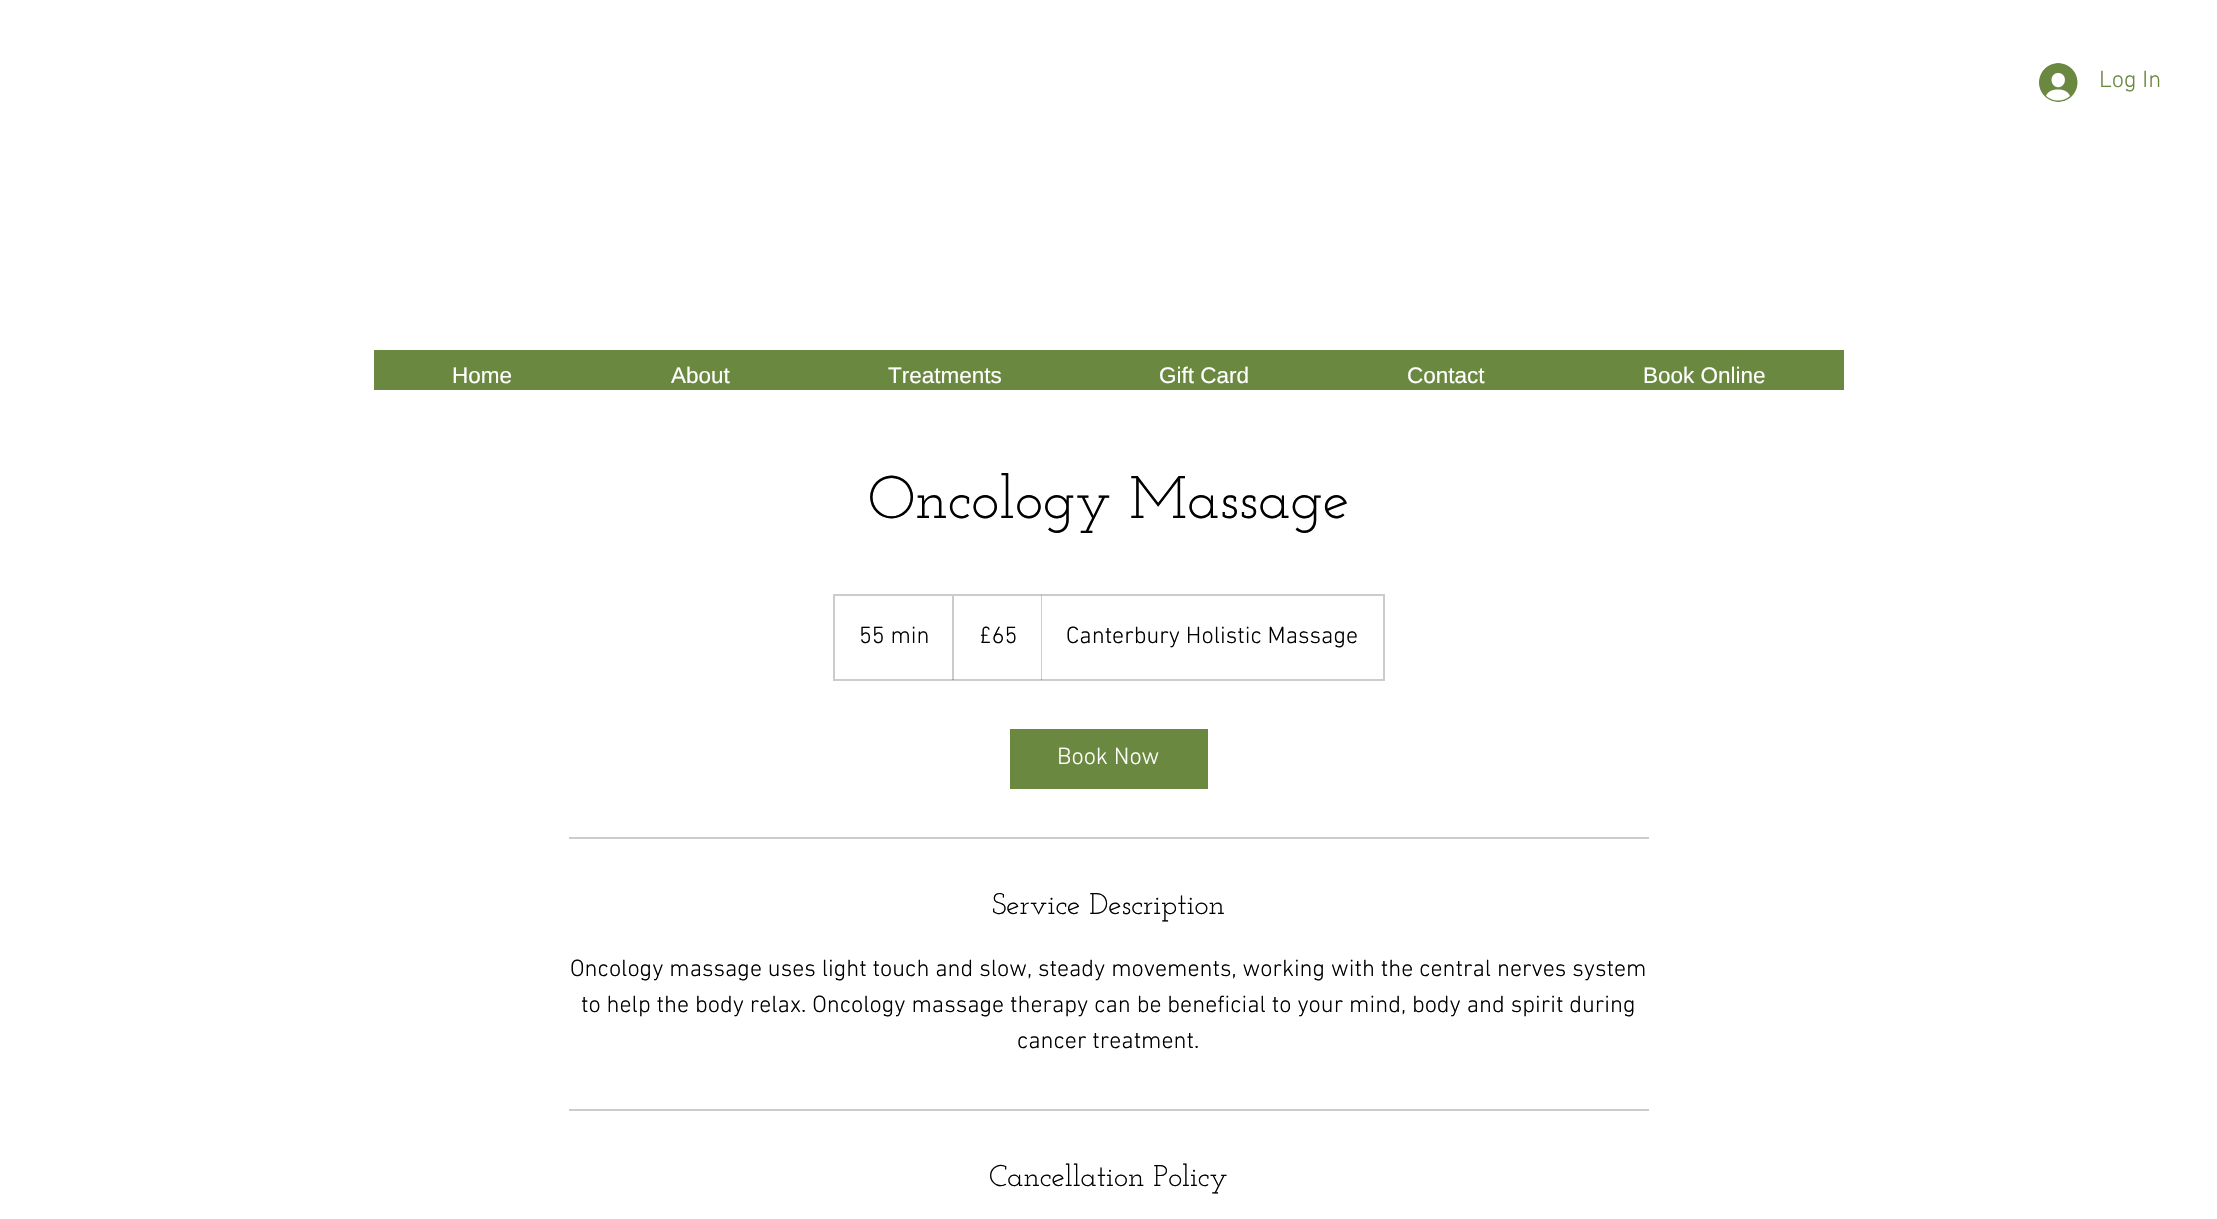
void draw(SkCanvas* c) {
SkPaint p;
p.setAntiAlias(true);
auto F=[&](const char* family, int weight, float size, bool italic = false){SkFontStyle style(weight, SkFontStyle::kNormal_Width,italic ? SkFontStyle::kItalic_Slant : SkFontStyle::kUpright_Slant);SkFont result(fontMgr->matchFamilyStyle(family, style), size);result.setSubpixel(true);return result;};
auto T=[&](const char* s, float x, float y, const SkFont& font){c->drawString(s, x, y, font, p);};
auto R=[&](float x, float y, float w, float h){c->drawRect(SkRect::MakeXYWH(x, y, w, h), p);};
auto I=[&](const char* path, float x, float y, float w, float h){auto image = SkImages::DeferredFromEncodedData(SkData::MakeFromFileName(path));c->drawImageRect(image, SkRect::MakeXYWH(x, y, w, h), SkSamplingOptions());};
auto P=[&](const char* data, bool evenOdd = false){SkPath result = *SkParsePath::FromSVGString(data);if (evenOdd) result.setFillType(SkPathFillType::kEvenOdd);return result;};
c->clear(0xffffffff);
I("1.png",2039,63,39,39);
auto f1 = F("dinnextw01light",300,24);
p.setColor(0xff6b8841);
T("Log In",2099,87,f1);
R(374,350,1470,40);
auto f2 = F("Liberation Sans",400,22.5);
p.setColor(0xffffffff);
T("Home",452,383,f2);
T("About",671,383,f2);
T("Treatments",888,383,f2);
T("Gift Card",1159,383,f2);
T("Contact",1407,383,f2);
T("Book Online",1643,383,f2);
auto f3 = F("Josefin Slab",400,60);
p.setColor(0xff000000);
T("Oncology Massage",868,518,f3);
p.setStroke(true);
p.setStrokeWidth(2);
p.setColor(0xffcccccc);
c->drawRect(SkRect::MakeXYWH(834,595,550,85),p);
p.setStroke(false);
p.setColor(0xff000000);
T("55 min",859,643,f1);
c->save();
c->clipRect(SkRect::MakeXYWH(834,596,549,84));
p.setColor(0x33000000);
c->drawPath(P("M952 680v-86l2 2v84z"),p);
c->restore();
p.setColor(0xff000000);
T("£65",979,643,f1);
p.setColor(0x33000000);
c->drawPath(P("M1041 680v-86l1 2v84z"),p);
p.setColor(0xff000000);
T("Canterbury Holistic Massage",1066,643,f1);
p.setColor(0xff6b8841);
R(1010,729,198,60);
p.setColor(0xffffffff);
T("Book Now",1057,764,f1);
p.setColor(0xffcccccc);
R(569,837,1080,2);
auto f4 = F("Josefin Slab",400,30);
p.setColor(0xff000000);
T("Service Description",992,914,f4);
T("Oncology massage uses light touch and slow, steady movements, working with the central nerves system",570,976,f1);
T("to help the body relax. Oncology massage therapy can be beneficial to your mind, body and spirit during",581,1012,f1);
T("cancer treatment.",1017,1048,f1);
p.setColor(0xffcccccc);
R(569,1109,1080,2);
p.setColor(0xff000000);
T("Cancellation Policy",989,1186,f4);
}
